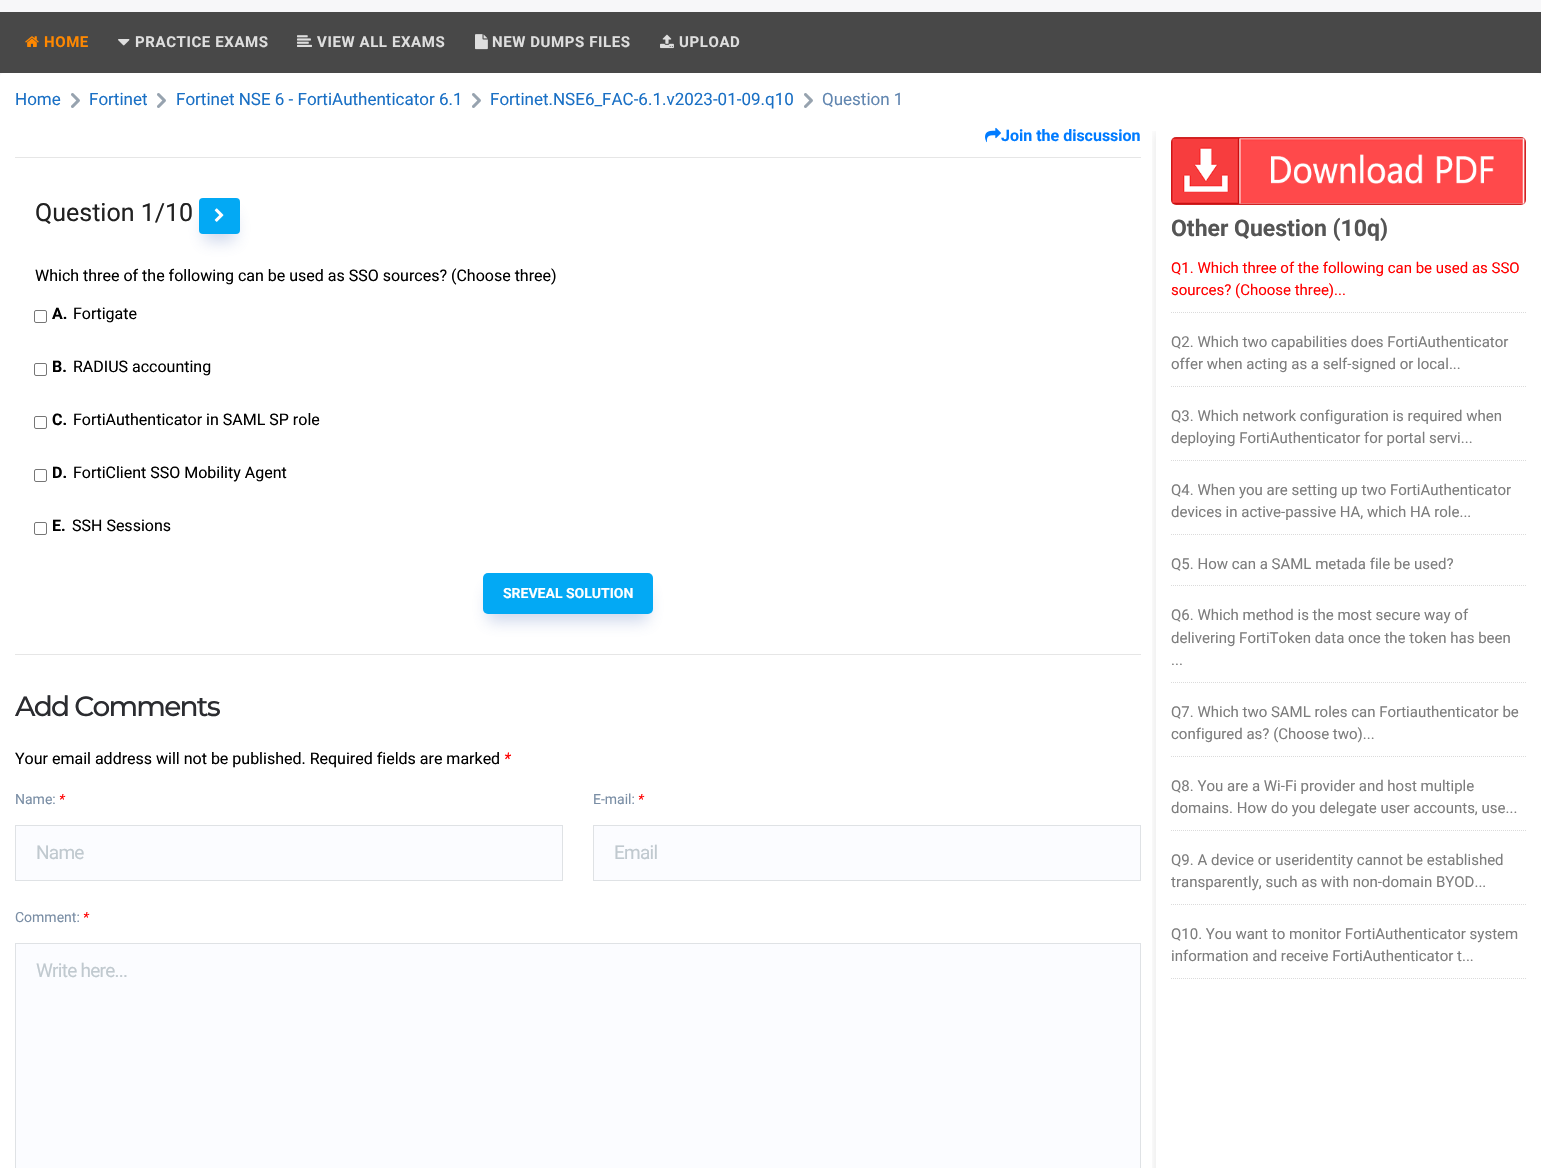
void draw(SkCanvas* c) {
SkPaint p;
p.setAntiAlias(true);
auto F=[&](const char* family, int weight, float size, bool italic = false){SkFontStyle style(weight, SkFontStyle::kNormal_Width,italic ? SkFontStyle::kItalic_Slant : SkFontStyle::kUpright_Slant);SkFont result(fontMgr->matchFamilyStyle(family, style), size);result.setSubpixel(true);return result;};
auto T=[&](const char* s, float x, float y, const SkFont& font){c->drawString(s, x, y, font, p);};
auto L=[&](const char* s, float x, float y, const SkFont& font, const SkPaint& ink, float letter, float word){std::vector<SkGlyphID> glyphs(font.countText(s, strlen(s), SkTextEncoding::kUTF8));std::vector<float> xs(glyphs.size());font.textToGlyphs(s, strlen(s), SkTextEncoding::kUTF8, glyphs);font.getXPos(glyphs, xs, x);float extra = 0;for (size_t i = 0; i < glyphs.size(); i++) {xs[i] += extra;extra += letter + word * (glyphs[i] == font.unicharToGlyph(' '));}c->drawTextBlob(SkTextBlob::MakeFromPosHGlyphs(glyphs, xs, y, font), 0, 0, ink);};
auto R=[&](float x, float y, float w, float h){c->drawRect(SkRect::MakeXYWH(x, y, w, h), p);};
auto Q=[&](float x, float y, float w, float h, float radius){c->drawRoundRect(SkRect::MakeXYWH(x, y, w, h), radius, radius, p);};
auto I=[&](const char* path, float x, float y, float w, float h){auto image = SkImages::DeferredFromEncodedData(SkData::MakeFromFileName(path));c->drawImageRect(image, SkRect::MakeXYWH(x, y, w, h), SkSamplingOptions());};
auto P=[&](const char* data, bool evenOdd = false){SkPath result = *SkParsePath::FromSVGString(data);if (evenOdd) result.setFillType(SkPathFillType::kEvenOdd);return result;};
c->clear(0xfff7f7f9);
p.setColor(0xff484848);
R(0,12,1541,61);
I("1.png",25,36,14,11);
auto f1 = F("Roboto",700,15);
p.setColor(0xffff8800);
L("HOME",44,47,f1,p,.6,0);
I("2.png",118,39,12,7);
p.setColor(0xffdedede);
L("PRACTICE EXAMS",135,47,f1,p,.6,0);
I("3.png",297,35,15,12);
L("VIEW ALL EXAMS",317,47,f1,p,.6,0);
I("4.png",475,34,13,16);
L("NEW DUMPS FILES",492,47,f1,p,.6,0);
I("5.png",660,34,14,15);
L("UPLOAD",679,47,f1,p,.6,0);
p.setColor(0xffffffff);
Q(0,73,1541,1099,4);
I("6.png",71,93,9,15);
auto f2 = F("Roboto",400,17);
p.setColor(0xff1a70c5);
T("Home",15,105,f2);
I("6.png",157,93,9,15);
T("Fortinet",89,105,f2);
I("6.png",472,93,9,15);
T("Fortinet NSE 6 - FortiAuthenticator 6.1",176,105,f2);
I("6.png",804,93,9,15);
T("Fortinet.NSE6_FAC-6.1.v2023-01-09.q10",490,105,f2);
p.setColor(0xff6186b0);
T("Question 1",822,105,f2);
I("7.png",985,127,16,16);
auto f3 = F("Roboto",700,16);
p.setColor(0xff007bff);
T("Join the discussion",1001,141,f3);
p.setColor(0xffe6e6e6);
R(15,157,1126,1);
R(15,654,1126,1);
auto f4 = F("Roboto",400,25);
p.setColor(0xff212121);
T("Question 1/10",35,221,f4);
p.setColor(0x4d5a78be);
p.setMaskFilter(SkMaskFilter::MakeBlur(kNormal_SkBlurStyle, 8));
c->drawRect(SkRect::MakeXYWH(204,215,31,26),p);
p.setMaskFilter(nullptr);
p.setColor(0xff03a9f4);
Q(199,198,41,36,4);
I("8.png",214,208,10,14);
auto f5 = F("Roboto",400,16);
p.setColor(0xff000000);
T("Which three of the following can be used as SSO sources? (Choose three)",35,281,f5);
p.setStroke(true);
p.setStrokeWidth(1);
p.setColor(0xff767676);
c->drawRoundRect(SkRect::MakeXYWH(34.5,310.5,12,12),1.5,1.5,p);
p.setStroke(false);
p.setColor(0xff000000);
T("A.",52,319,f3);
T("Fortigate",73,319,f5);
p.setStroke(true);
p.setColor(0xff767676);
c->drawRoundRect(SkRect::MakeXYWH(34.5,363.5,12,12),1.5,1.5,p);
p.setStroke(false);
p.setColor(0xff000000);
T("B.",52,372,f3);
T("RADIUS accounting",73,372,f5);
p.setStroke(true);
p.setColor(0xff767676);
c->drawRoundRect(SkRect::MakeXYWH(34.5,416.5,12,12),1.5,1.5,p);
p.setStroke(false);
p.setColor(0xff000000);
T("C.",52,425,f3);
T("FortiAuthenticator in SAML SP role",73,425,f5);
p.setStroke(true);
p.setColor(0xff767676);
c->drawRoundRect(SkRect::MakeXYWH(34.5,469.5,12,12),1.5,1.5,p);
p.setStroke(false);
p.setColor(0xff000000);
T("D.",52,478,f3);
T("FortiClient SSO Mobility Agent",73,478,f5);
p.setStroke(true);
p.setColor(0xff767676);
c->drawRoundRect(SkRect::MakeXYWH(34.5,522.5,12,12),1.5,1.5,p);
p.setStroke(false);
p.setColor(0xff000000);
T("E.",52,531,f3);
T("SSH Sessions",72,531,f5);
p.setColor(0x4d5a78be);
p.setMaskFilter(SkMaskFilter::MakeBlur(kNormal_SkBlurStyle, 8));
c->drawRect(SkRect::MakeXYWH(488,590,160,31),p);
p.setMaskFilter(nullptr);
p.setColor(0xff03a9f4);
Q(483,573,170,41,5);
auto f6 = F("Roboto",700,14);
p.setColor(0xffffffff);
T("SREVEAL SOLUTION",503,598,f6);
auto f7 = F("Montserrat",500,28);
p.setColor(0xff2b2c30);
L("Add Comments",15,716,f7,p,-1.75,0);
p.setColor(0xff000000);
T("Your email address will not be published. Required fields are marked",15,764,f5);
auto f8 = F("Roboto",400,16,true);
p.setColor(0xffff0000);
T("*",504,764,f8);
auto f9 = F("Roboto",400,14);
p.setColor(0xff7a8ea5);
T("Name:",15,804,f9);
auto f10 = F("Roboto",400,14,true);
p.setColor(0xffff0000);
T("*",59,804,f10);
p.setColor(0xfffbfcff);
c->drawRect(SkRect::MakeXYWH(15.5,825.5,547,55),p);
p.setStroke(true);
p.setColor(0xffdfe2e5);
c->drawRect(SkRect::MakeXYWH(15.5,825.5,547,55),p);
auto f11 = F("Roboto",400,19);
p.setStroke(false);
p.setColor(0xffc0c9cf);
L("Name",36,859,f11,p,-.75,0);
p.setColor(0xff7a8ea5);
T("E-mail:",593,804,f9);
p.setColor(0xffff0000);
T("*",638,804,f10);
p.setColor(0xfffbfcff);
c->drawRect(SkRect::MakeXYWH(593.5,825.5,547,55),p);
p.setStroke(true);
p.setColor(0xffdfe2e5);
c->drawRect(SkRect::MakeXYWH(593.5,825.5,547,55),p);
p.setStroke(false);
p.setColor(0xffc0c9cf);
L("Email",614,859,f11,p,-.75,0);
p.setColor(0xff7a8ea5);
T("Comment:",15,922,f9);
p.setColor(0xffff0000);
T("*",83,922,f10);
p.setColor(0xfffbfcff);
c->drawRect(SkRect::MakeXYWH(15.5,943.5,1125,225),p);
p.setStroke(true);
p.setColor(0xffdfe2e5);
c->drawRect(SkRect::MakeXYWH(15.5,943.5,1125,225),p);
p.setStroke(false);
p.setColor(0xffc0c9cf);
L("Write here...",36,977,f11,p,-.75,0);
c->save();
c->clipRect(SkRect::MakeXYWH(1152,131,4,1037));
p.setColor(0x1a000000);
p.setMaskFilter(SkMaskFilter::MakeBlur(kNormal_SkBlurStyle, 5));
c->drawRect(SkRect::MakeXYWH(1156,132,385,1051),p);
p.setMaskFilter(nullptr);
c->restore();
I("9.png",1171,137,355,68);
auto f12 = F("Roboto",700,23);
p.setColor(0xff555555);
T("Other Question (10q)",1171,236,f12);
p.setStroke(true);
p.setColor(0xffdbdbdb);
p.setPathEffect(SkDashPathEffect::Make({{1,1}}, 0));
c->drawPath(P("M1171 312.5h355"),p);
p.setPathEffect(nullptr);
auto f13 = F("Roboto",400,15);
p.setStroke(false);
p.setColor(0xffff0000);
T("Q1. Which three of the following can be used as SSO",1171,273,f13);
T("sources? (Choose three)...",1171,295,f13);
p.setStroke(true);
p.setColor(0xffdbdbdb);
p.setPathEffect(SkDashPathEffect::Make({{1,1}}, 0));
c->drawPath(P("M1171 386.5h355"),p);
p.setPathEffect(nullptr);
p.setStroke(false);
p.setColor(0xff7d7d7d);
T("Q2. Which two capabilities does FortiAuthenticator",1171,347,f13);
T("offer when acting as a self-signed or local...",1171,369,f13);
p.setStroke(true);
p.setColor(0xffdbdbdb);
p.setPathEffect(SkDashPathEffect::Make({{1,1}}, 0));
c->drawPath(P("M1171 460.5h355"),p);
p.setPathEffect(nullptr);
p.setStroke(false);
p.setColor(0xff7d7d7d);
T("Q3. Which network configuration is required when",1171,421,f13);
T("deploying FortiAuthenticator for portal servi...",1171,443,f13);
p.setStroke(true);
p.setColor(0xffdbdbdb);
p.setPathEffect(SkDashPathEffect::Make({{1,1}}, 0));
c->drawPath(P("M1171 534.5h355"),p);
p.setPathEffect(nullptr);
p.setStroke(false);
p.setColor(0xff7d7d7d);
T("Q4. When you are setting up two FortiAuthenticator",1171,495,f13);
T("devices in active-passive HA, which HA role...",1171,517,f13);
p.setStroke(true);
p.setColor(0xffdbdbdb);
p.setPathEffect(SkDashPathEffect::Make({{1,1}}, 0));
c->drawPath(P("M1171 585.5h355"),p);
p.setPathEffect(nullptr);
p.setStroke(false);
p.setColor(0xff7d7d7d);
T("Q5. How can a SAML metada file be used?",1171,569,f13);
p.setStroke(true);
p.setColor(0xffdbdbdb);
p.setPathEffect(SkDashPathEffect::Make({{1,1}}, 0));
c->drawPath(P("M1171 682.5h355"),p);
p.setPathEffect(nullptr);
p.setStroke(false);
p.setColor(0xff7d7d7d);
T("Q6. Which method is the most secure way of",1171,620,f13);
T("delivering FortiToken data once the token has been",1171,643,f13);
T("...",1171,665,f13);
p.setStroke(true);
p.setColor(0xffdbdbdb);
p.setPathEffect(SkDashPathEffect::Make({{1,1}}, 0));
c->drawPath(P("M1171 756.5h355"),p);
p.setPathEffect(nullptr);
p.setStroke(false);
p.setColor(0xff7d7d7d);
T("Q7. Which two SAML roles can Fortiauthenticator be",1171,717,f13);
T("configured as? (Choose two)...",1171,739,f13);
p.setStroke(true);
p.setColor(0xffdbdbdb);
p.setPathEffect(SkDashPathEffect::Make({{1,1}}, 0));
c->drawPath(P("M1171 830.5h355"),p);
p.setPathEffect(nullptr);
p.setStroke(false);
p.setColor(0xff7d7d7d);
T("Q8. You are a Wi-Fi provider and host multiple",1171,791,f13);
T("domains. How do you delegate user accounts, use...",1171,813,f13);
p.setStroke(true);
p.setColor(0xffdbdbdb);
p.setPathEffect(SkDashPathEffect::Make({{1,1}}, 0));
c->drawPath(P("M1171 904.5h355"),p);
p.setPathEffect(nullptr);
p.setStroke(false);
p.setColor(0xff7d7d7d);
T("Q9. A device or useridentity cannot be established",1171,865,f13);
T("transparently, such as with non-domain BYOD...",1171,887,f13);
p.setStroke(true);
p.setColor(0xffdbdbdb);
p.setPathEffect(SkDashPathEffect::Make({{1,1}}, 0));
c->drawPath(P("M1171 978.5h355"),p);
p.setPathEffect(nullptr);
p.setStroke(false);
p.setColor(0xff7d7d7d);
T("Q10. You want to monitor FortiAuthenticator system",1171,939,f13);
T("information and receive FortiAuthenticator t...",1171,961,f13);
}
